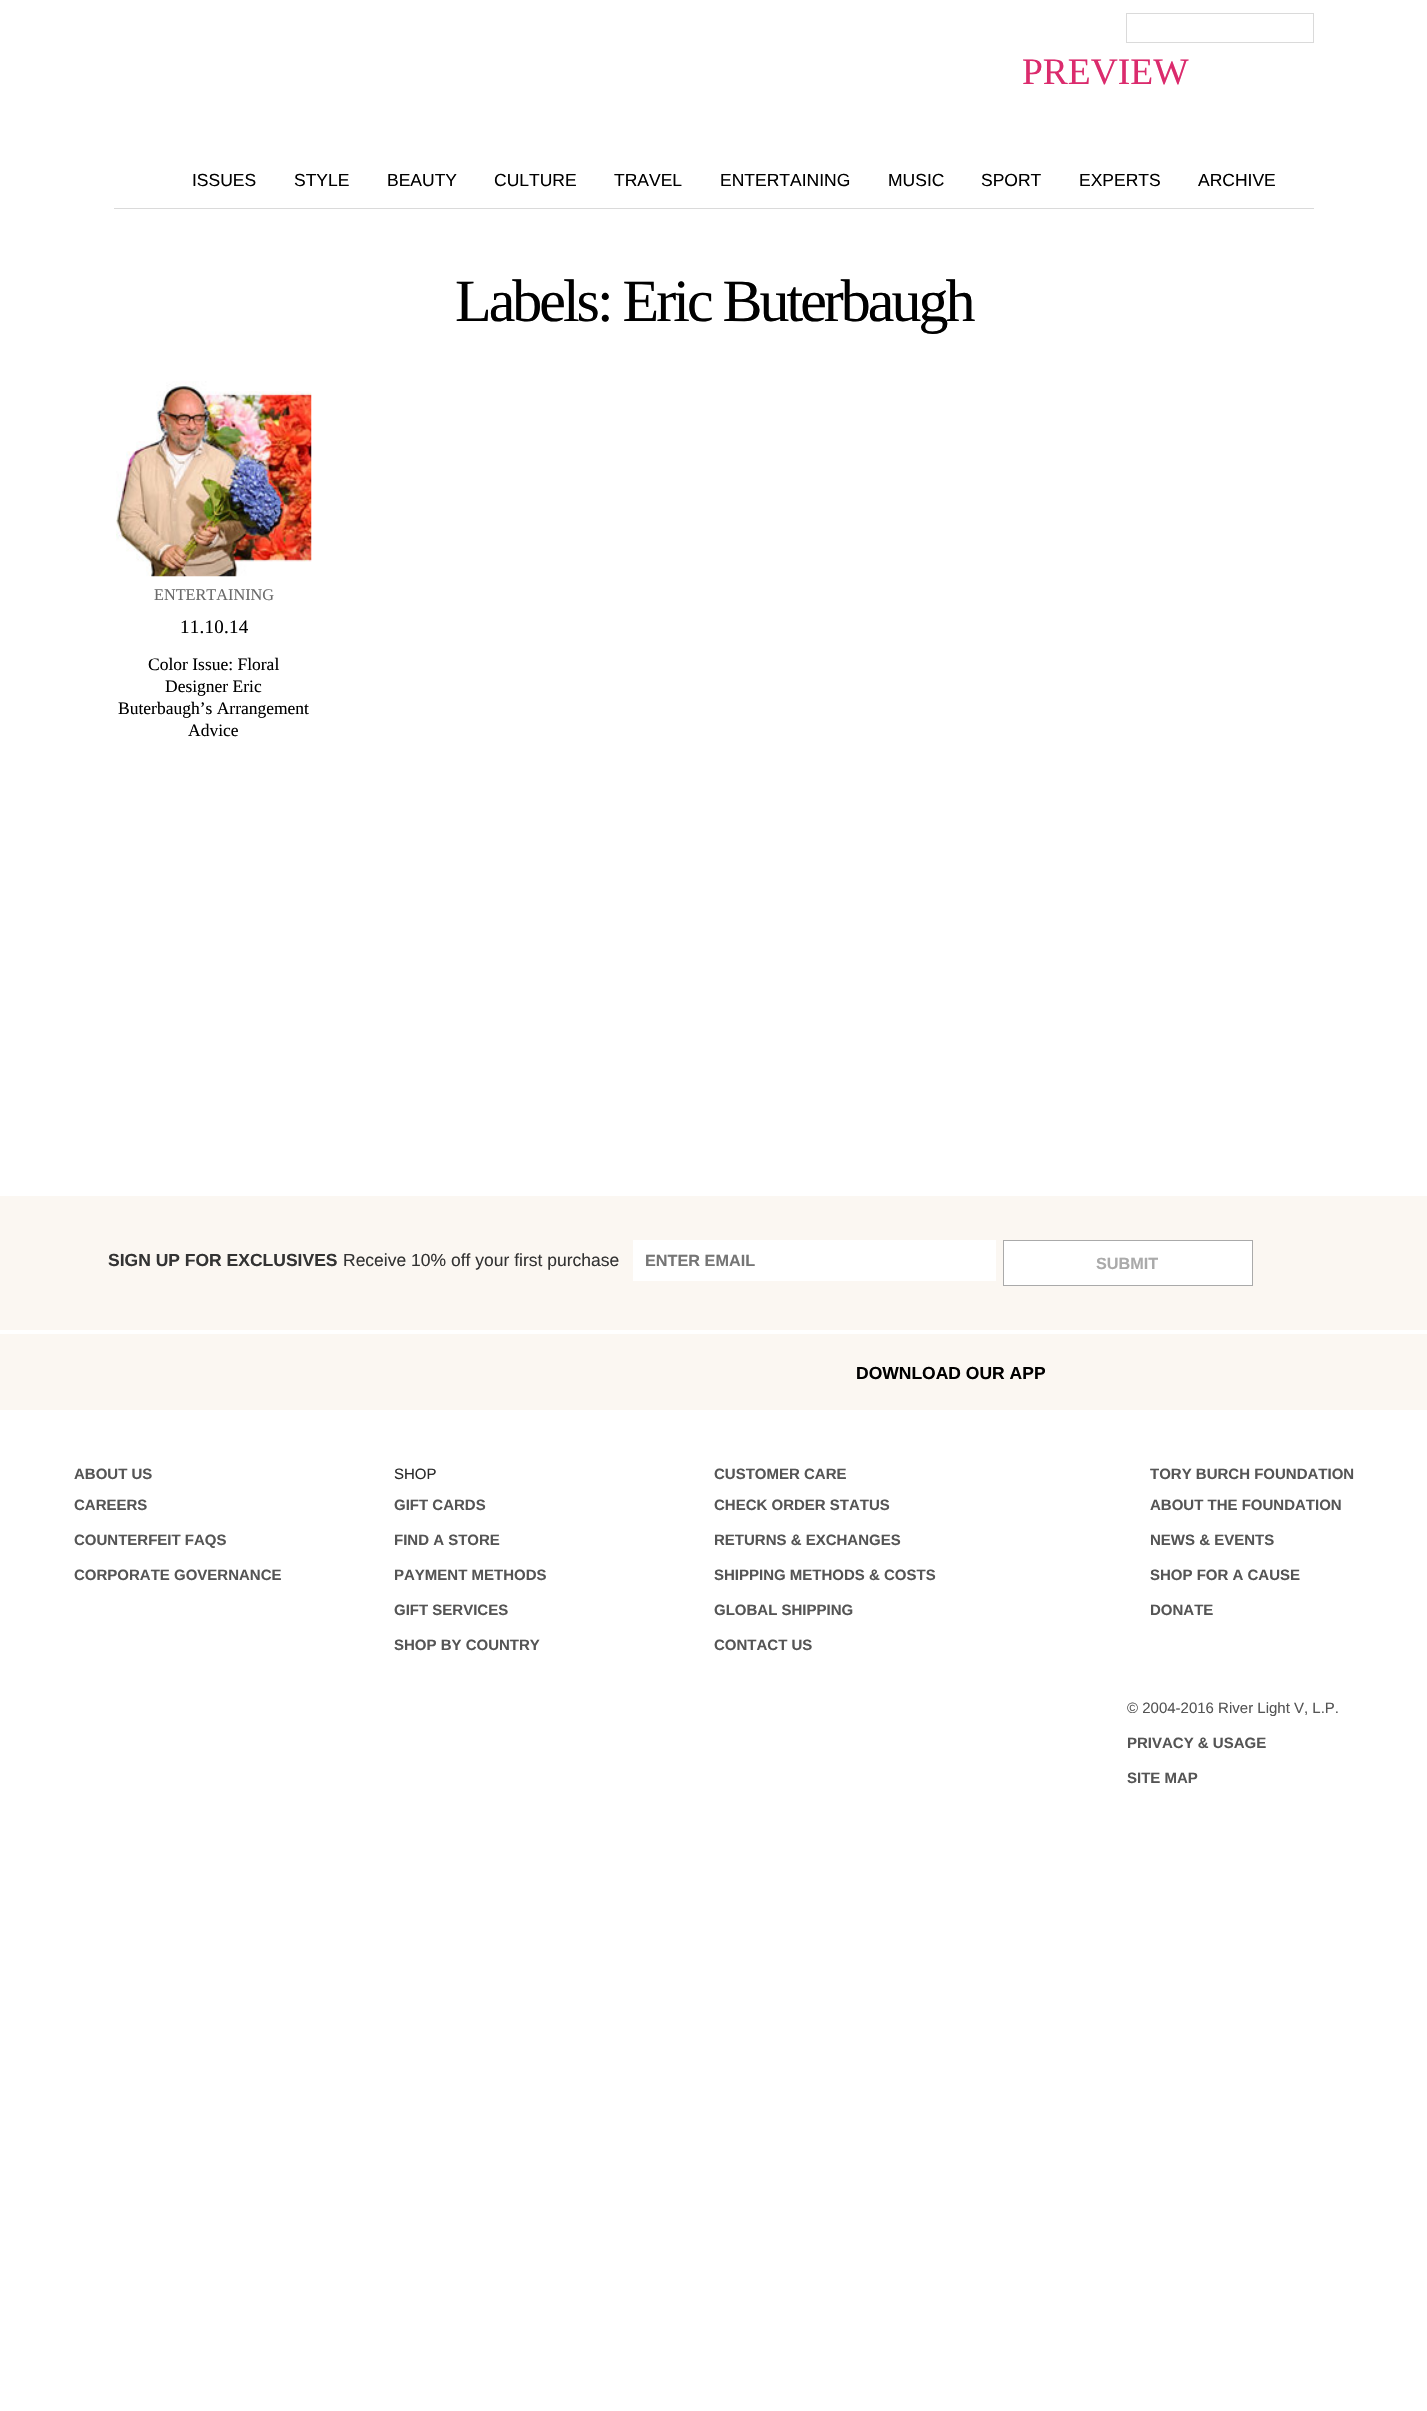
void draw(SkCanvas* c) {
SkPaint p;
p.setAntiAlias(true);
auto F=[&](const char* family, int weight, float size, bool italic = false){SkFontStyle style(weight, SkFontStyle::kNormal_Width,italic ? SkFontStyle::kItalic_Slant : SkFontStyle::kUpright_Slant);SkFont result(fontMgr->matchFamilyStyle(family, style), size);result.setSubpixel(true);return result;};
auto T=[&](const char* s, float x, float y, const SkFont& font){c->drawString(s, x, y, font, p);};
auto L=[&](const char* s, float x, float y, const SkFont& font, const SkPaint& ink, float letter, float word){std::vector<SkGlyphID> glyphs(font.countText(s, strlen(s), SkTextEncoding::kUTF8));std::vector<float> xs(glyphs.size());font.textToGlyphs(s, strlen(s), SkTextEncoding::kUTF8, glyphs);font.getXPos(glyphs, xs, x);float extra = 0;for (size_t i = 0; i < glyphs.size(); i++) {xs[i] += extra;extra += letter + word * (glyphs[i] == font.unicharToGlyph(' '));}c->drawTextBlob(SkTextBlob::MakeFromPosHGlyphs(glyphs, xs, y, font), 0, 0, ink);};
auto R=[&](float x, float y, float w, float h){c->drawRect(SkRect::MakeXYWH(x, y, w, h), p);};
auto I=[&](const char* path, float x, float y, float w, float h){auto image = SkImages::DeferredFromEncodedData(SkData::MakeFromFileName(path));c->drawImageRect(image, SkRect::MakeXYWH(x, y, w, h), SkSamplingOptions());};
c->clear(0xffffffff);
p.setStroke(true);
p.setStrokeWidth(1);
p.setColor(0xffdadada);
c->drawRect(SkRect::MakeXYWH(1126.5,13.5,187,29),p);
auto f1 = F("Liberation Serif",400,37.5);
p.setStroke(false);
p.setColor(0xffdb2b6d);
T("PREVIEW",1022,84,f1);
p.setColor(0xffdadada);
R(114,208,1200,1);
auto f2 = F("Liberation Sans",400,17.5);
p.setColor(0xff000000);
T("ISSUES",192,186,f2);
T("STYLE",294,186,f2);
T("BEAUTY",387,186,f2);
T("CULTURE",494,186,f2);
T("TRAVEL",614,186,f2);
T("ENTERTAINING",720,186,f2);
T("MUSIC",888,186,f2);
T("SPORT",981,186,f2);
T("EXPERTS",1079,186,f2);
T("ARCHIVE",1198,186,f2);
auto f3 = F("Liberation Serif",400,60);
L("Labels: Eric Buterbaugh",455,321,f3,p,-3,0);
I("1.png",116,381,196,196);
auto f4 = F("Liberation Serif",400,16.25);
p.setColor(0xff6b6b6b);
T("ENTERTAINING",154,600,f4);
auto f5 = F("Liberation Serif",400,19);
p.setColor(0xff000000);
L("11.10.14",180,633,f5,p,.25,0);
auto f6 = F("Liberation Serif",400,17.5);
T("Color Issue: Floral",148,670,f6);
T("Designer Eric",165,692,f6);
T("Buterbaugh’s Arrangement",118,714,f6);
T("Advice",188,736,f6);
p.setColor(0xfffbf7f2);
R(0,1196,1427,134);
auto f7 = F("Liberation Sans",700,17.5);
p.setColor(0xff333333);
T("SIGN UP FOR EXCLUSIVES",108,1266,f7);
T("Receive 10% off your first purchase",343,1266,f2);
p.setColor(0xffffffff);
R(633,1240,363,41);
auto f8 = F("Liberation Sans",700,16.25);
p.setColor(0xff757575);
T("ENTER EMAIL",645,1266,f8);
p.setColor(0xffffffff);
c->drawRect(SkRect::MakeXYWH(1003.5,1240.5,249,45),p);
p.setStroke(true);
p.setColor(0xffaaaaaa);
c->drawRect(SkRect::MakeXYWH(1003.5,1240.5,249,45),p);
p.setStroke(false);
T("SUBMIT",1096,1269,f8);
p.setColor(0xfffbf7f2);
R(0,1334,1427,76);
p.setColor(0xff000000);
T("DOWNLOAD OUR APP",856,1379,f7);
auto f9 = F("Liberation Sans",700,15);
p.setColor(0xff555555);
T("ABOUT US",74,1479,f9);
T("CAREERS",74,1510,f9);
T("COUNTERFEIT FAQS",74,1545,f9);
T("CORPORATE GOVERNANCE",74,1580,f9);
auto f10 = F("Liberation Sans",400,15);
p.setColor(0xff2b2b2b);
T("SHOP",394,1479,f10);
p.setColor(0xff555555);
T("GIFT CARDS",394,1510,f9);
T("FIND A STORE",394,1545,f9);
T("PAYMENT METHODS",394,1580,f9);
T("GIFT SERVICES",394,1615,f9);
T("SHOP BY COUNTRY",394,1650,f9);
T("CUSTOMER CARE",714,1479,f9);
T("CHECK ORDER STATUS",714,1510,f9);
T("RETURNS & EXCHANGES",714,1545,f9);
T("SHIPPING METHODS & COSTS",714,1580,f9);
T("GLOBAL SHIPPING",714,1615,f9);
T("CONTACT US",714,1650,f9);
T("TORY BURCH FOUNDATION",1150,1479,f9);
T("ABOUT THE FOUNDATION",1150,1510,f9);
T("NEWS & EVENTS",1150,1545,f9);
T("SHOP FOR A CAUSE",1150,1580,f9);
T("DONATE",1150,1615,f9);
T("© 2004-2016 River Light V, L.P.",1127,1713,f10);
T("PRIVACY & USAGE",1127,1748,f9);
T("SITE MAP",1127,1783,f9);
}
